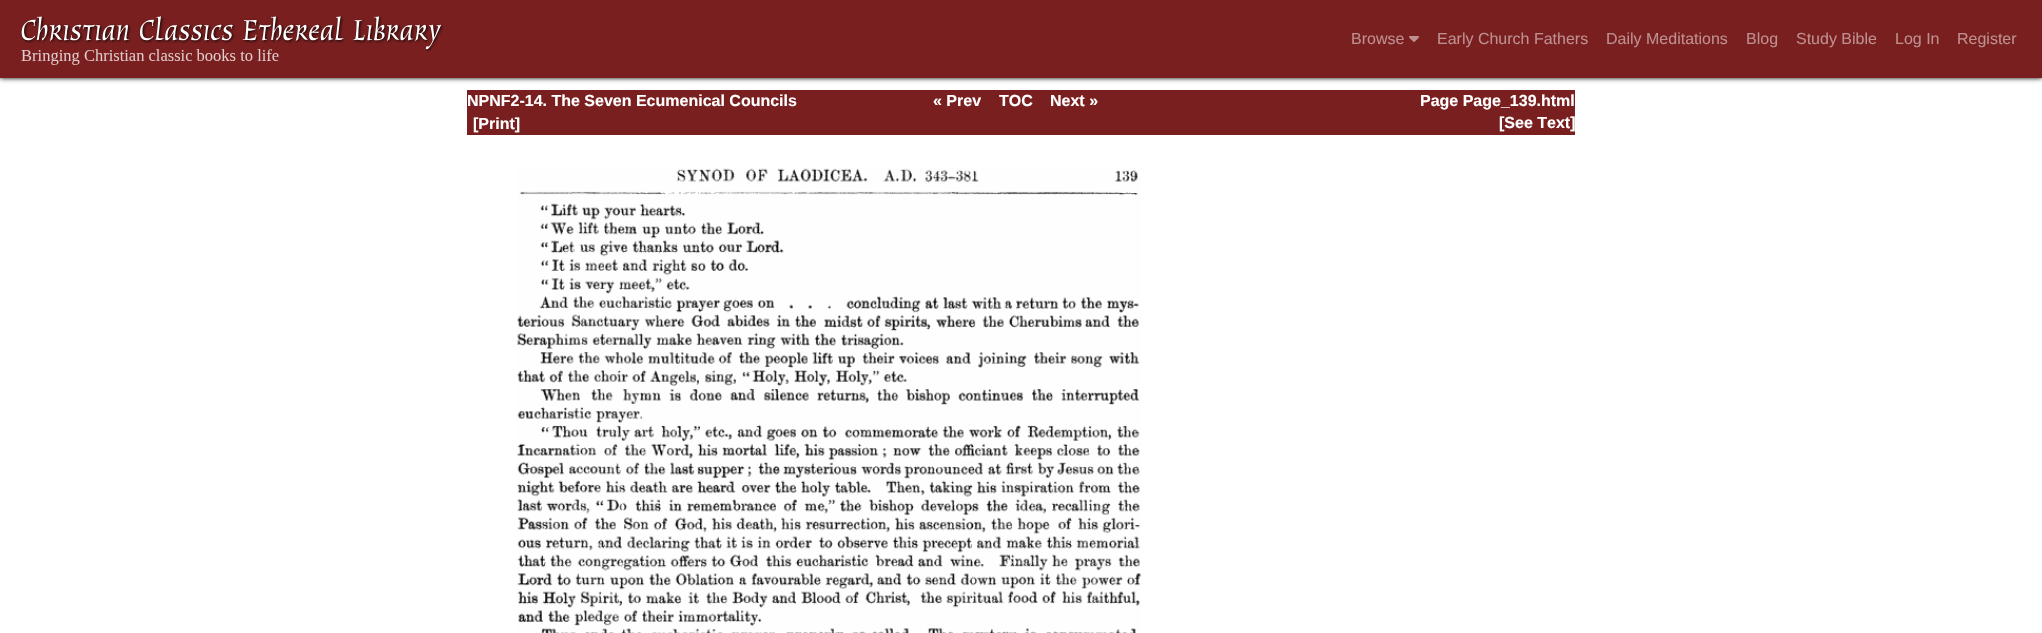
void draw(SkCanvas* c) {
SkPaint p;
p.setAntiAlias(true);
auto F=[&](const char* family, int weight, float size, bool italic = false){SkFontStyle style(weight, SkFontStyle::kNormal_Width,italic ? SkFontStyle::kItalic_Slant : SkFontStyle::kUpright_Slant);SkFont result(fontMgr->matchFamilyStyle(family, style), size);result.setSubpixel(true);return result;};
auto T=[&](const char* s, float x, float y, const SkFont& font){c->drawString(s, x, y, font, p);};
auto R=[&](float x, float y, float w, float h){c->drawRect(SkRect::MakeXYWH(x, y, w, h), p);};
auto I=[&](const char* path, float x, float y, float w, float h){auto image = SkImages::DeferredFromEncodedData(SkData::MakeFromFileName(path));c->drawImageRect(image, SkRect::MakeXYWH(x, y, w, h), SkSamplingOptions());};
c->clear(0xffffffff);
p.setColor(0xff000000);
p.setMaskFilter(SkMaskFilter::MakeBlur(kNormal_SkBlurStyle, 2.5));
c->drawRect(SkRect::MakeXYWH(0,0,2042,78),p);
p.setMaskFilter(nullptr);
p.setColor(0xff7a1f1f);
R(0,0,2042,78);
I("1.png",20,15,424,50);
auto f1 = F("Liberation Sans",400,16);
p.setColor(0xffbd8f8f);
T("Browse",1351,44,f1);
I("2.png",1409,36,10,6);
T("Early Church Fathers",1437,44,f1);
T("Daily Meditations",1606,44,f1);
T("Blog",1746,44,f1);
T("Study Bible",1796,44,f1);
T("Log In",1895,44,f1);
T("Register",1957,44,f1);
p.setColor(0xff7a1f1f);
R(467,90,1108,45);
auto f2 = F("Liberation Sans",700,16);
p.setColor(0xffffffff);
T("NPNF2-14. The Seven Ecumenical Councils",467,106,f2);
T("« Prev",933,106,f2);
T("TOC",999,106,f2);
T("Next »",1050,106,f2);
T("Page Page_139.html",1420,106,f2);
T("[Print]",473,129,f2);
T("[See Text]",1499,128,f2);
I("3.png",517,168,624,465);
}
